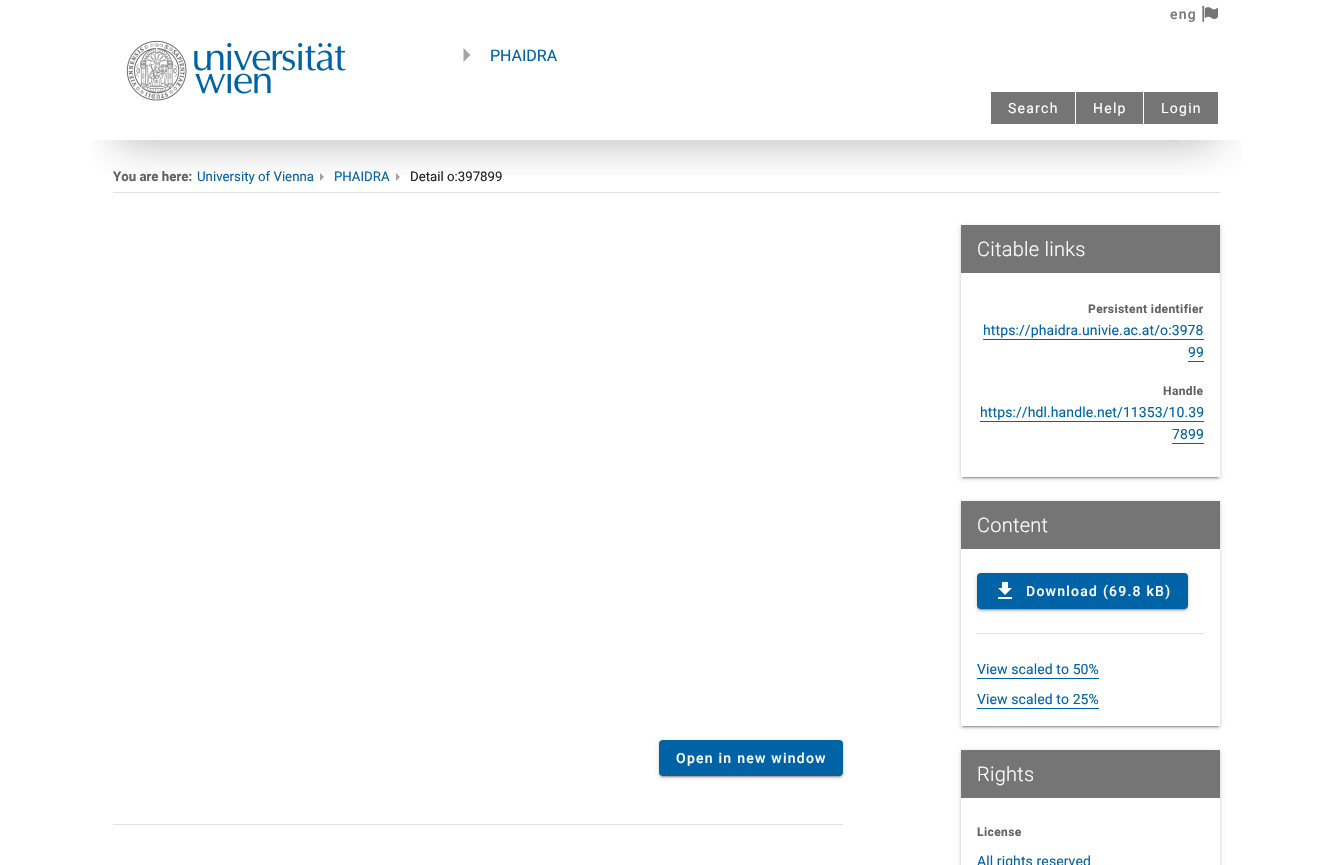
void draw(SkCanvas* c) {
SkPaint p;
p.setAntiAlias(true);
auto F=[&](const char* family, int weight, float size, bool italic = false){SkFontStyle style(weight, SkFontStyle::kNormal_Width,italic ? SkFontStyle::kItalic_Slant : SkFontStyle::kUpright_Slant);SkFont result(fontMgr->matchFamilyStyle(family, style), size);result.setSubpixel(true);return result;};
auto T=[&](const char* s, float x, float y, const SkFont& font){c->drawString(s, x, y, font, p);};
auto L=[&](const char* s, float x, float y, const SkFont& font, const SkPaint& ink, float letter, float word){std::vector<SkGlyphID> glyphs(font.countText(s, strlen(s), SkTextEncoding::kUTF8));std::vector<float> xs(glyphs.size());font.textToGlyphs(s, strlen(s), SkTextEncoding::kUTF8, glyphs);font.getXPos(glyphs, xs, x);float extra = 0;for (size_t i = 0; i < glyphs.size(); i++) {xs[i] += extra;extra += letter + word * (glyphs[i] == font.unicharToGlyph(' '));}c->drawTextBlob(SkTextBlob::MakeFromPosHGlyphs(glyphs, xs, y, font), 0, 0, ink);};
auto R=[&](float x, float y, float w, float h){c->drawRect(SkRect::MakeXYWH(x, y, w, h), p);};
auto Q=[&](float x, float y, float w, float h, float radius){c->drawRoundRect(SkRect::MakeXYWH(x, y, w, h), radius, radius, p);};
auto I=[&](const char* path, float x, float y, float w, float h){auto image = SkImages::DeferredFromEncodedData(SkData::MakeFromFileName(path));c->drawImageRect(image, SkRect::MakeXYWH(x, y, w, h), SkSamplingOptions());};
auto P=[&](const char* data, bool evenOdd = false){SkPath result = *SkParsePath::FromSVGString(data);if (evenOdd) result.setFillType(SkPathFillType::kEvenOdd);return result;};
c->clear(0xffffffff);
p.setColor(0xffa4a4a4);
c->drawPath(P("M320 173v8l4-4z"),p);
c->drawPath(P("M396 173v8l4-4z"),p);
p.setColor(0xffe0e0e0);
R(113,192,1107,1);
c->save();
c->clipRect(SkRect::MakeXYWH(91,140,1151,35));
p.setColor(0x66464646);
p.setMaskFilter(SkMaskFilter::MakeBlur(kNormal_SkBlurStyle, 20));
c->drawRect(SkRect::MakeXYWH(117,14,1099,128),p);
p.setMaskFilter(nullptr);
c->restore();
p.setColor(0xffffffff);
R(81,0,30,140);
R(1222,0,30,140);
I("1.png",126,40,220,61);
auto f1 = F("Roboto",500,14);
p.setColor(0xff757575);
L("eng",1170,19,f1,p,1.25,0);
I("2.png",1202,6,16,16);
p.setColor(0xffa4a4a4);
c->drawPath(P("M463.5 48v14l7-7z"),p);
auto f2 = F("Roboto",400,16);
p.setColor(0xff0063a6);
T("PHAIDRA",490,61,f2);
p.setColor(0xff757575);
R(991,92,84,32);
auto f3 = F("Roboto",400,14);
p.setColor(0xffffffff);
L("Search",1008,113,f3,p,1.25,0);
p.setColor(0xff757575);
R(1076,92,67,32);
p.setColor(0xffffffff);
L("Help",1093,113,f3,p,1.25,0);
p.setColor(0xff757575);
R(1144,92,74,32);
p.setColor(0xffffffff);
L("Login",1161,113,f3,p,1.25,0);
auto f4 = F("Roboto",700,13.25);
p.setColor(0xff616161);
T("You are here:",113,181,f4);
auto f5 = F("Roboto",400,13.25);
p.setColor(0xff0063a6);
T("University of Vienna",197,181,f5);
T("PHAIDRA",334,181,f5);
p.setColor(0xff212121);
T("Detail o:397899",410,181,f5);
p.setColor(0x1f000000);
p.setMaskFilter(SkMaskFilter::MakeBlur(kNormal_SkBlurStyle, 2.5));
c->drawRoundRect(SkRect::MakeXYWH(659,741,184,36),4,4,p);
p.setMaskFilter(nullptr);
p.setColor(0x24000000);
p.setMaskFilter(SkMaskFilter::MakeBlur(kNormal_SkBlurStyle, 1));
c->drawRoundRect(SkRect::MakeXYWH(659,742,184,36),4,4,p);
p.setMaskFilter(nullptr);
p.setColor(0x33000000);
p.setMaskFilter(SkMaskFilter::MakeBlur(kNormal_SkBlurStyle, .5));
c->drawRoundRect(SkRect::MakeXYWH(661,745,180,32),2,2,p);
p.setMaskFilter(nullptr);
p.setColor(0xff0063a6);
Q(659,740,184,36,4);
p.setColor(0xffffffff);
L("Open in new window",676,763,f1,p,1.25,0);
p.setColor(0xffe0e0e0);
R(113,824,730,1);
c->save();
c->clipPath(P("M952 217h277v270h-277zm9 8h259v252h-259z",true),true);
p.setColor(0x1f000000);
p.setMaskFilter(SkMaskFilter::MakeBlur(kNormal_SkBlurStyle, 2.5));
c->drawRect(SkRect::MakeXYWH(961,226,259,252),p);
p.setMaskFilter(nullptr);
c->restore();
c->save();
c->clipPath(P("M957 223h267v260h-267zm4 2h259v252h-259z",true),true);
p.setColor(0x24000000);
p.setMaskFilter(SkMaskFilter::MakeBlur(kNormal_SkBlurStyle, 1));
c->drawRect(SkRect::MakeXYWH(961,227,259,252),p);
p.setMaskFilter(nullptr);
c->restore();
c->save();
c->clipRect(SkRect::MakeXYWH(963,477,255,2));
p.setColor(0x33000000);
p.setMaskFilter(SkMaskFilter::MakeBlur(kNormal_SkBlurStyle, .5));
c->drawRect(SkRect::MakeXYWH(963,230,255,248),p);
p.setMaskFilter(nullptr);
c->restore();
p.setColor(0xff757575);
R(961,225,259,48);
auto f6 = F("Roboto",300,20);
p.setColor(0xffffffff);
L("Citable links",977,256,f6,p,.25,0);
auto f7 = F("Roboto",700,12);
p.setColor(0xff616161);
L("Persistent identifier",1088,313,f7,p,.4,0);
p.setColor(0xff0063a6);
L("https://phaidra.univie.ac.at/o:3978",983,335,f3,p,.1,0);
R(983,339,221,1);
L("99",1188,357,f3,p,.1,0);
R(1188,361,16,1);
p.setColor(0xff616161);
L("Handle",1163,395,f7,p,.4,0);
p.setColor(0xff0063a6);
L("https://hdl.handle.net/11353/10.39",980,417,f3,p,.1,0);
R(980,421,224,1);
L("7899",1172,439,f3,p,.1,0);
R(1172,443,32,1);
c->save();
c->clipPath(P("M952 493h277v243h-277zm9 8h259v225h-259z",true),true);
p.setColor(0x1f000000);
p.setMaskFilter(SkMaskFilter::MakeBlur(kNormal_SkBlurStyle, 2.5));
c->drawRect(SkRect::MakeXYWH(961,502,259,225),p);
p.setMaskFilter(nullptr);
c->restore();
c->save();
c->clipPath(P("M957 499h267v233h-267zm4 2h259v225h-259z",true),true);
p.setColor(0x24000000);
p.setMaskFilter(SkMaskFilter::MakeBlur(kNormal_SkBlurStyle, 1));
c->drawRect(SkRect::MakeXYWH(961,503,259,225),p);
p.setMaskFilter(nullptr);
c->restore();
c->save();
c->clipRect(SkRect::MakeXYWH(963,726,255,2));
p.setColor(0x33000000);
p.setMaskFilter(SkMaskFilter::MakeBlur(kNormal_SkBlurStyle, .5));
c->drawRect(SkRect::MakeXYWH(963,506,255,221),p);
p.setMaskFilter(nullptr);
c->restore();
p.setColor(0xff757575);
R(961,501,259,48);
p.setColor(0xffffffff);
L("Content",977,532,f6,p,.25,0);
p.setColor(0x1f000000);
p.setMaskFilter(SkMaskFilter::MakeBlur(kNormal_SkBlurStyle, 2.5));
c->drawRoundRect(SkRect::MakeXYWH(977,574,211,36),4,4,p);
p.setMaskFilter(nullptr);
p.setColor(0x24000000);
p.setMaskFilter(SkMaskFilter::MakeBlur(kNormal_SkBlurStyle, 1));
c->drawRoundRect(SkRect::MakeXYWH(977,575,211,36),4,4,p);
p.setMaskFilter(nullptr);
p.setColor(0x33000000);
p.setMaskFilter(SkMaskFilter::MakeBlur(kNormal_SkBlurStyle, .5));
c->drawRoundRect(SkRect::MakeXYWH(979,578,207,32),2,2,p);
p.setMaskFilter(nullptr);
p.setColor(0xff0063a6);
Q(977,573,211,36,4);
I("3.png",998,582,14,17);
p.setColor(0xffffffff);
L("Download (69.8 kB)",1026,596,f1,p,1.25,0);
p.setColor(0xffe0e0e0);
R(977,633,227,1);
p.setColor(0xff0063a6);
L("View scaled to 50%",977,674,f3,p,.1,0);
R(977,678,122,1);
L("View scaled to 25%",977,704,f3,p,.1,0);
R(977,708,122,1);
c->save();
c->clipPath(P("M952 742h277v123h-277zm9 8h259v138h-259z",true),true);
p.setColor(0x1f000000);
p.setMaskFilter(SkMaskFilter::MakeBlur(kNormal_SkBlurStyle, 2.5));
c->drawRect(SkRect::MakeXYWH(961,751,259,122),p);
p.setMaskFilter(nullptr);
c->restore();
c->save();
c->clipPath(P("M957 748h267v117h-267zm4 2h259v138h-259z",true),true);
p.setColor(0x24000000);
p.setMaskFilter(SkMaskFilter::MakeBlur(kNormal_SkBlurStyle, 1));
c->drawRect(SkRect::MakeXYWH(961,752,259,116),p);
p.setMaskFilter(nullptr);
c->restore();
p.setColor(0xff757575);
R(961,750,259,48);
p.setColor(0xffffffff);
L("Rights",977,781,f6,p,.25,0);
p.setColor(0xff616161);
L("License",977,836,f7,p,.4,0);
p.setColor(0xff0063a6);
L("All rights reserved",977,866,f3,p,.1,0);
}
